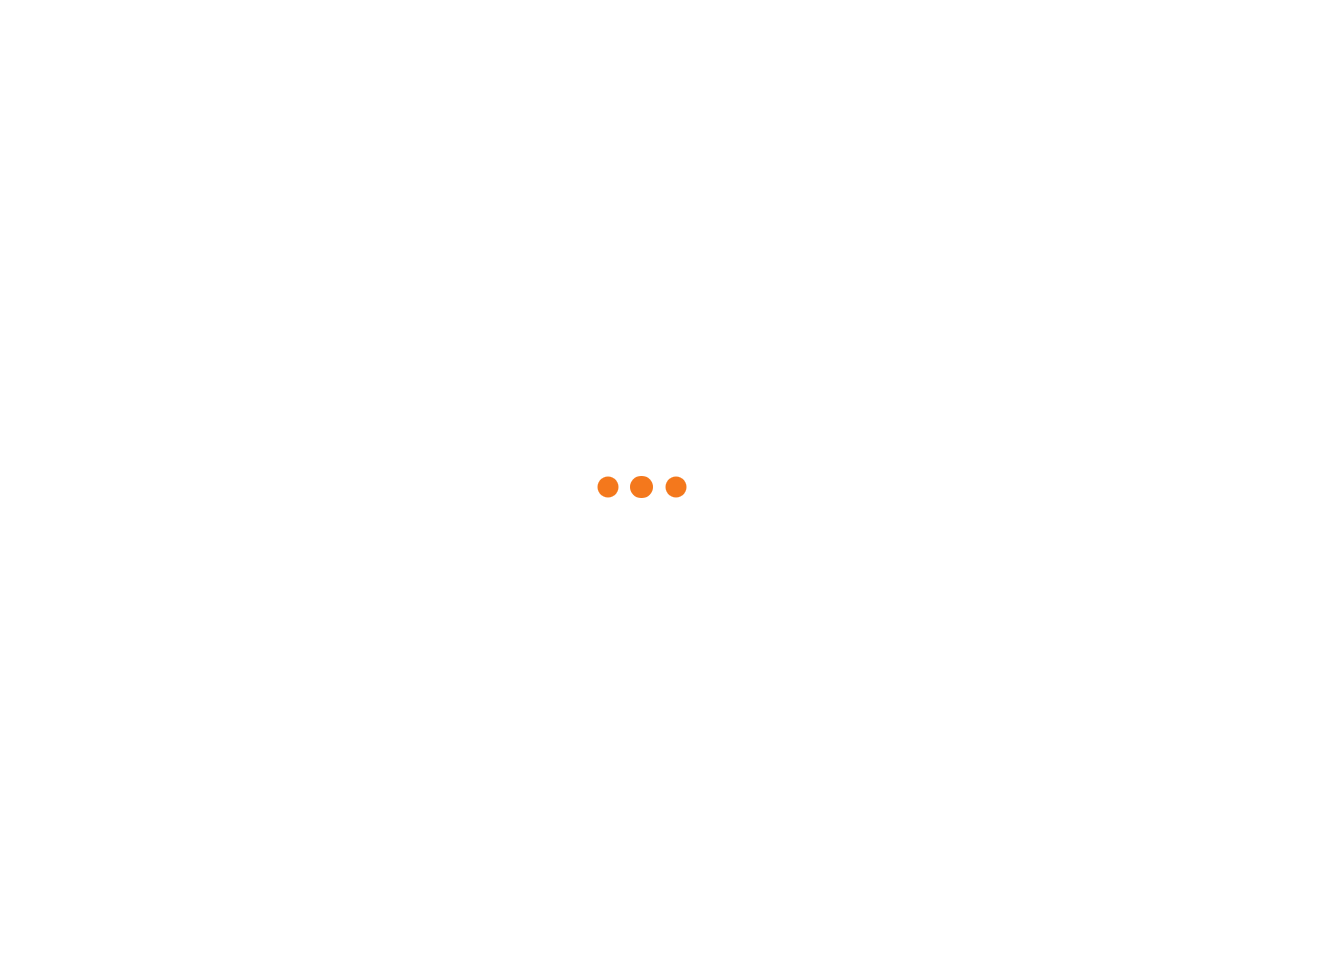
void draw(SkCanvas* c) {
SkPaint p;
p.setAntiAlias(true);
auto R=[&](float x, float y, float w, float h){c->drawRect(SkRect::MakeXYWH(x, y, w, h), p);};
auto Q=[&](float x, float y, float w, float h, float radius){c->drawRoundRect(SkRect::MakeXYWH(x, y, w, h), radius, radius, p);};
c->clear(0xffffffff);
{
const SkColor colors[] = {0xfff4781c,0xffffffff};
const float stops[] = {.9,1};
p.setShader(SkGradientShader::MakeRadial({676,487}, 11, colors, stops, 2, SkTileMode::kClamp));
p.setAlpha(255);
}
R(665,476,22,22);
{
const SkColor colors[] = {0xfff4781c,0xffffffff};
const float stops[] = {.9,1};
p.setShader(SkGradientShader::MakeRadial({608,487}, 11, colors, stops, 2, SkTileMode::kClamp));
p.setAlpha(255);
}
R(597,476,22,22);
p.setShader(nullptr);
p.setColor(0xfff4781c);
Q(630,476,23,22,11);
}
